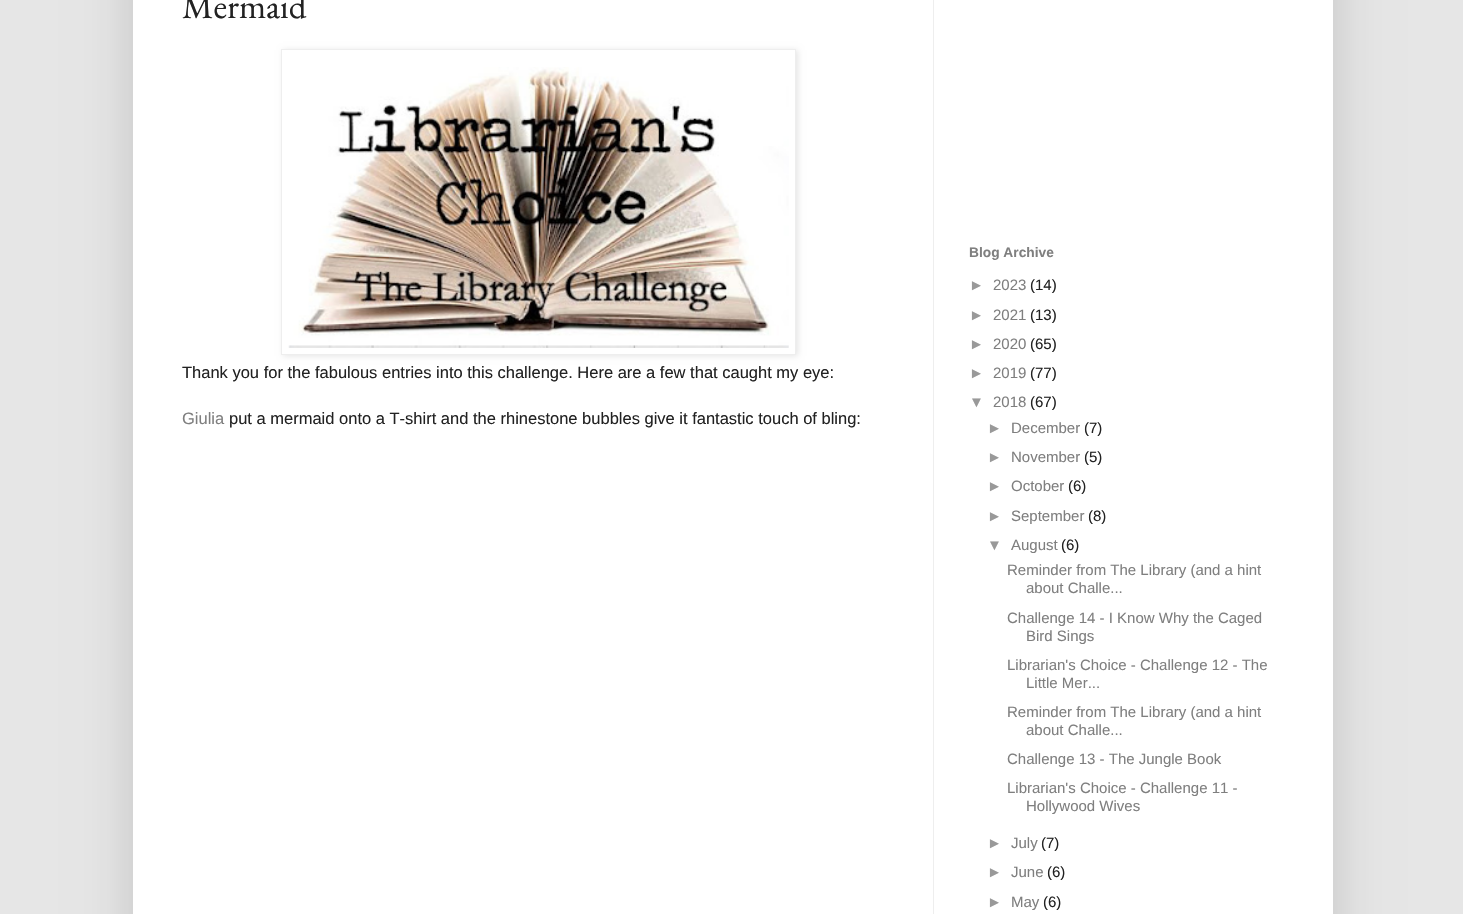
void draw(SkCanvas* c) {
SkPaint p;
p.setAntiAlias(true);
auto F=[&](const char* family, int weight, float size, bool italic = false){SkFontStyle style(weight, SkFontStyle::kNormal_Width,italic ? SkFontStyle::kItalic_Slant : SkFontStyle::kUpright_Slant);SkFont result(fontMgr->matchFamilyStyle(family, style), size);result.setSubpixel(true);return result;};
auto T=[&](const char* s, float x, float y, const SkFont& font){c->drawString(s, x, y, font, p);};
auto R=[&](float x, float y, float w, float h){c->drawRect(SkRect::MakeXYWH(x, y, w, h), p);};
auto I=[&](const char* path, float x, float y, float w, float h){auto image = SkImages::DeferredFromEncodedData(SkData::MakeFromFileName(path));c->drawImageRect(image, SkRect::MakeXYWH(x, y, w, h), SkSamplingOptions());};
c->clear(0xffe6e6e6);
p.setColor(0x26000000);
p.setMaskFilter(SkMaskFilter::MakeBlur(kNormal_SkBlurStyle, 25));
c->drawRect(SkRect::MakeXYWH(133,-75,1200,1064),p);
p.setMaskFilter(nullptr);
p.setColor(0xffffffff);
R(133,0,1200,914);
auto f1 = F("EB Garamond",400,35);
p.setColor(0xff222222);
T("Mermaid",182,18,f1);
p.setColor(0x1a000000);
p.setMaskFilter(SkMaskFilter::MakeBlur(kNormal_SkBlurStyle, 3));
c->drawRect(SkRect::MakeXYWH(283,50,515,306),p);
p.setMaskFilter(nullptr);
p.setColor(0xffffffff);
c->drawRect(SkRect::MakeXYWH(281.5,49.5,514,305),p);
p.setStroke(true);
p.setStrokeWidth(1);
p.setColor(0xffeeeeee);
c->drawRect(SkRect::MakeXYWH(281.5,49.5,514,305),p);
I("1.png",288,67,501,281);
auto f2 = F("Liberation Sans",400,16.5);
p.setStroke(false);
p.setColor(0xff222222);
T("Thank you for the fabulous entries into this challenge. Here are a few that caught my eye:",182,378,f2);
p.setColor(0xff7f7f7f);
T("Giulia",182,424,f2);
p.setColor(0xff222222);
T("put a mermaid onto a T-shirt and the rhinestone bubbles give it fantastic touch of bling:",229,424,f2);
auto f3 = F("Liberation Sans",700,13.75);
p.setColor(0xff7f7f7f);
T("Blog Archive",969,257,f3);
auto f4 = F("Liberation Sans",400,15);
p.setColor(0xff999999);
T("►",969,290,f4);
p.setColor(0xff7f7f7f);
T("2023",993,290,f4);
p.setColor(0xff222222);
T("(14)",1030,290,f4);
p.setColor(0xff999999);
T("►",969,320,f4);
p.setColor(0xff7f7f7f);
T("2021",993,320,f4);
p.setColor(0xff222222);
T("(13)",1030,320,f4);
p.setColor(0xff999999);
T("►",969,349,f4);
p.setColor(0xff7f7f7f);
T("2020",993,349,f4);
p.setColor(0xff222222);
T("(65)",1030,349,f4);
p.setColor(0xff999999);
T("►",969,378,f4);
p.setColor(0xff7f7f7f);
T("2019",993,378,f4);
p.setColor(0xff222222);
T("(77)",1030,378,f4);
p.setColor(0xff999999);
T("▼",969,407,f4);
p.setColor(0xff7f7f7f);
T("2018",993,407,f4);
p.setColor(0xff222222);
T("(67)",1030,407,f4);
p.setColor(0xff999999);
T("►",987,433,f4);
p.setColor(0xff7f7f7f);
T("December",1011,433,f4);
p.setColor(0xff222222);
T("(7)",1084,433,f4);
p.setColor(0xff999999);
T("►",987,462,f4);
p.setColor(0xff7f7f7f);
T("November",1011,462,f4);
p.setColor(0xff222222);
T("(5)",1084,462,f4);
p.setColor(0xff999999);
T("►",987,491,f4);
p.setColor(0xff7f7f7f);
T("October",1011,491,f4);
p.setColor(0xff222222);
T("(6)",1068,491,f4);
p.setColor(0xff999999);
T("►",987,521,f4);
p.setColor(0xff7f7f7f);
T("September",1011,521,f4);
p.setColor(0xff222222);
T("(8)",1088,521,f4);
p.setColor(0xff999999);
T("▼",987,550,f4);
p.setColor(0xff7f7f7f);
T("August",1011,550,f4);
p.setColor(0xff222222);
T("(6)",1061,550,f4);
p.setColor(0xff7f7f7f);
T("Reminder from The Library (and a hint",1007,575,f4);
T("about Challe...",1026,593,f4);
T("Challenge 14 - I Know Why the Caged",1007,623,f4);
T("Bird Sings",1026,641,f4);
T("Librarian's Choice - Challenge 12 - The",1007,670,f4);
T("Little Mer...",1026,688,f4);
T("Reminder from The Library (and a hint",1007,717,f4);
T("about Challe...",1026,735,f4);
T("Challenge 13 - The Jungle Book",1007,764,f4);
T("Librarian's Choice - Challenge 11 -",1007,793,f4);
T("Hollywood Wives",1026,811,f4);
p.setColor(0xff999999);
T("►",987,848,f4);
p.setColor(0xff7f7f7f);
T("July",1011,848,f4);
p.setColor(0xff222222);
T("(7)",1041,848,f4);
p.setColor(0xff999999);
T("►",987,877,f4);
p.setColor(0xff7f7f7f);
T("June",1011,877,f4);
p.setColor(0xff222222);
T("(6)",1047,877,f4);
p.setColor(0xff999999);
T("►",987,907,f4);
p.setColor(0xff7f7f7f);
T("May",1011,907,f4);
p.setColor(0xff222222);
T("(6)",1043,907,f4);
p.setColor(0xffeeeeee);
R(933,0,1,914);
}
